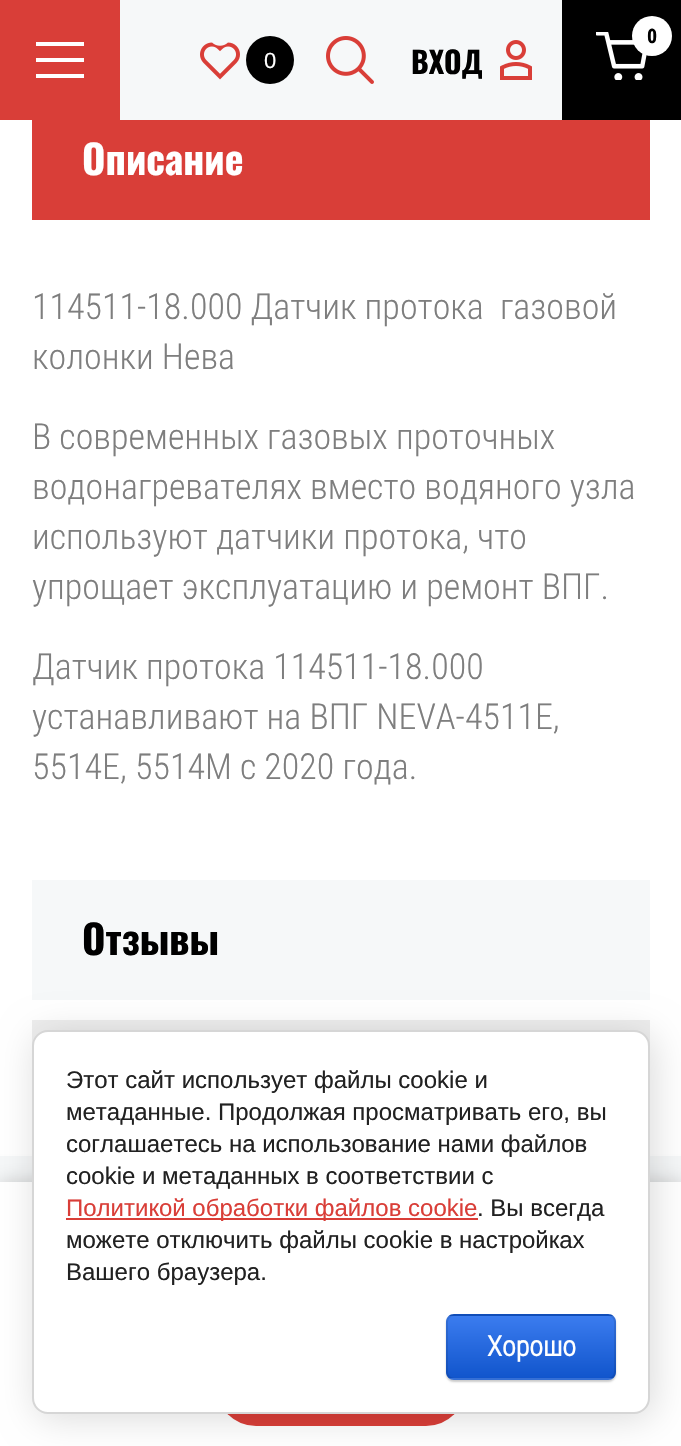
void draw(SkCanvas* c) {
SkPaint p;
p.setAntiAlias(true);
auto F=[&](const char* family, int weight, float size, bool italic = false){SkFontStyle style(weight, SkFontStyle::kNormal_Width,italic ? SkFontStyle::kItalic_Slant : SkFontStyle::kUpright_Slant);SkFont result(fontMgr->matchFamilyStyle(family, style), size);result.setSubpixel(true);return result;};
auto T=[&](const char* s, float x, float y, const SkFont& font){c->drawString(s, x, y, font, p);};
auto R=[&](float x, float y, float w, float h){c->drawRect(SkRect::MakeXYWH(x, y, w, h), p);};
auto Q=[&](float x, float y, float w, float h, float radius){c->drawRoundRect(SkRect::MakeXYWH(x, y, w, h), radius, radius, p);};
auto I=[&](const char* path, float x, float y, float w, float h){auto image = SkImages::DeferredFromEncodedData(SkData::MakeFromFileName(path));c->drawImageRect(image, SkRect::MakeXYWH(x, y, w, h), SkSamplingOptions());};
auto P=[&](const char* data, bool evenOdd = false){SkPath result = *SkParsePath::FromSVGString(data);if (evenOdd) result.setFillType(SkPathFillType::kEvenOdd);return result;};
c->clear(0xffffffff);
p.setColor(0xfff6f8f9);
R(120,0,442,120);
p.setColor(0xffd93e38);
R(0,0,120,120);
p.setColor(0xffffffff);
c->drawPath(P("M36 42h48v4h-48zm0 16h48v4h-48zm0 16h48v4h-48z"),p);
p.setColor(0xff000000);
R(562,0,119,120);
I("1.png",596,32,51,48);
p.setColor(0xffffffff);
c->drawCircle(652,36,20,p);
auto f1 = F("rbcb",700,20);
p.setColor(0xff000000);
T("0",647,43,f1);
I("2.png",200,42,40,38);
c->drawCircle(270,60,24,p);
auto f2 = F("Liberation Sans",400,22);
p.setColor(0xffffffff);
T("0",264,68,f2);
I("3.png",326,36,48,48);
auto f3 = F("Oswald",700,30);
p.setColor(0xff000000);
T("ВХОД",411,74,f3);
I("4.png",500,40,32,40);
p.setColor(0xffd93e38);
R(32,120,618,100);
auto f4 = F("Oswald",700,40);
p.setColor(0xffffffff);
T("Описание",82,175,f4);
auto f5 = F("Roboto Condensed",300,36);
p.setColor(0xff7e7e7e);
T("114511-18.000 Датчик протока  газовой",32,319,f5);
T("колонки Нева",32,369,f5);
T("В современных газовых проточных",32,449,f5);
T("водонагревателях вместо водяного узла",32,499,f5);
T("используют датчики протока, что",32,549,f5);
T("упрощает эксплуатацию и ремонт ВПГ.",32,599,f5);
T("Датчик протока 114511-18.000",32,679,f5);
T("устанавливают на ВПГ NEVA-4511E,",32,729,f5);
T("5514E, 5514M с 2020 года.",32,779,f5);
p.setColor(0xfff6f8f9);
R(32,880,618,120);
p.setColor(0xff000000);
T("Отзывы",82,955,f4);
p.setColor(0xffeeeeee);
R(32,1020,618,26);
p.setColor(0xfff6f8f9);
R(0,1156,681,26);
p.setColor(0x3b000000);
p.setMaskFilter(SkMaskFilter::MakeBlur(kNormal_SkBlurStyle, 10));
c->drawRect(SkRect::MakeXYWH(0,1184,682,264),p);
p.setMaskFilter(nullptr);
p.setColor(0xffffffff);
R(0,1182,681,264);
p.setColor(0xffd93e38);
Q(216,1346,250,80,40);
p.setColor(0x24000000);
p.setMaskFilter(SkMaskFilter::MakeBlur(kNormal_SkBlurStyle, 18));
c->drawRoundRect(SkRect::MakeXYWH(36,1034,618,384),16,16,p);
p.setMaskFilter(nullptr);
p.setColor(0xffffffff);
c->drawRoundRect(SkRect::MakeXYWH(33,1031,616,382),15,15,p);
p.setStroke(true);
p.setStrokeWidth(2);
p.setColor(0xffd6d6d6);
c->drawRoundRect(SkRect::MakeXYWH(33,1031,616,382),15,15,p);
auto f6 = F("Liberation Sans",400,24);
p.setStroke(false);
p.setColor(0xff212121);
T("Этот сайт использует файлы cookie и",66,1088,f6);
T("метаданные. Продолжая просматривать его, вы",66,1120,f6);
T("соглашаетесь на использование нами файлов",66,1152,f6);
T("cookie и метаданных в соответствии с",66,1184,f6);
p.setColor(0xffd93e38);
R(66,1218,412,2);
T("Политикой обработки файлов cookie",66,1216,f6);
p.setColor(0xff212121);
T(". Вы всегда",477,1216,f6);
T("можете отключить файлы cookie в настройках",66,1248,f6);
T("Вашего браузера.",66,1280,f6);
p.setColor(0x33000000);
p.setMaskFilter(SkMaskFilter::MakeBlur(kNormal_SkBlurStyle, 1));
c->drawRoundRect(SkRect::MakeXYWH(446,1316,170,66),8,8,p);
p.setMaskFilter(nullptr);
c->save();
c->clipPath(P("M454 1314h154c4.5 0 8 3.5 8 8v50c0 4.5-3.5 8-8 8h-154c-4.5 0-8-3.5-8-8v-50c0-4.5 3.5-8 8-8z"),true);
{
const SkColor colors[] = {0xff3b7cef,0xff1155cc};
const float stops[] = {0,1};
const SkPoint ends[] = {{531,1254}, {531,1316}};
p.setShader(SkGradientShader::MakeLinear(ends, colors, stops, 2, SkTileMode::kClamp));
p.setAlpha(255);
}
R(446,1314,170,2);
{
const SkColor colors[] = {0xff3b7cef,0xff1155cc};
const float stops[] = {0,1};
const SkPoint ends[] = {{531,1316}, {531,1378}};
p.setShader(SkGradientShader::MakeLinear(ends, colors, stops, 2, SkTileMode::kClamp));
p.setAlpha(255);
}
R(446,1316,170,62);
{
const SkColor colors[] = {0xff3b7cef,0xff1155cc};
const float stops[] = {0,1};
const SkPoint ends[] = {{531,1378}, {531,1440}};
p.setShader(SkGradientShader::MakeLinear(ends, colors, stops, 2, SkTileMode::kClamp));
p.setAlpha(255);
}
R(446,1378,170,2);
c->restore();
p.setStroke(true);
p.setShader(nullptr);
p.setColor(0x1a000000);
c->drawRoundRect(SkRect::MakeXYWH(447,1315,168,64),7,7,p);
auto f7 = F("Roboto Condensed",700,28);
p.setStroke(false);
p.setColor(0xffffffff);
T("Хорошо",487,1356,f7);
}
